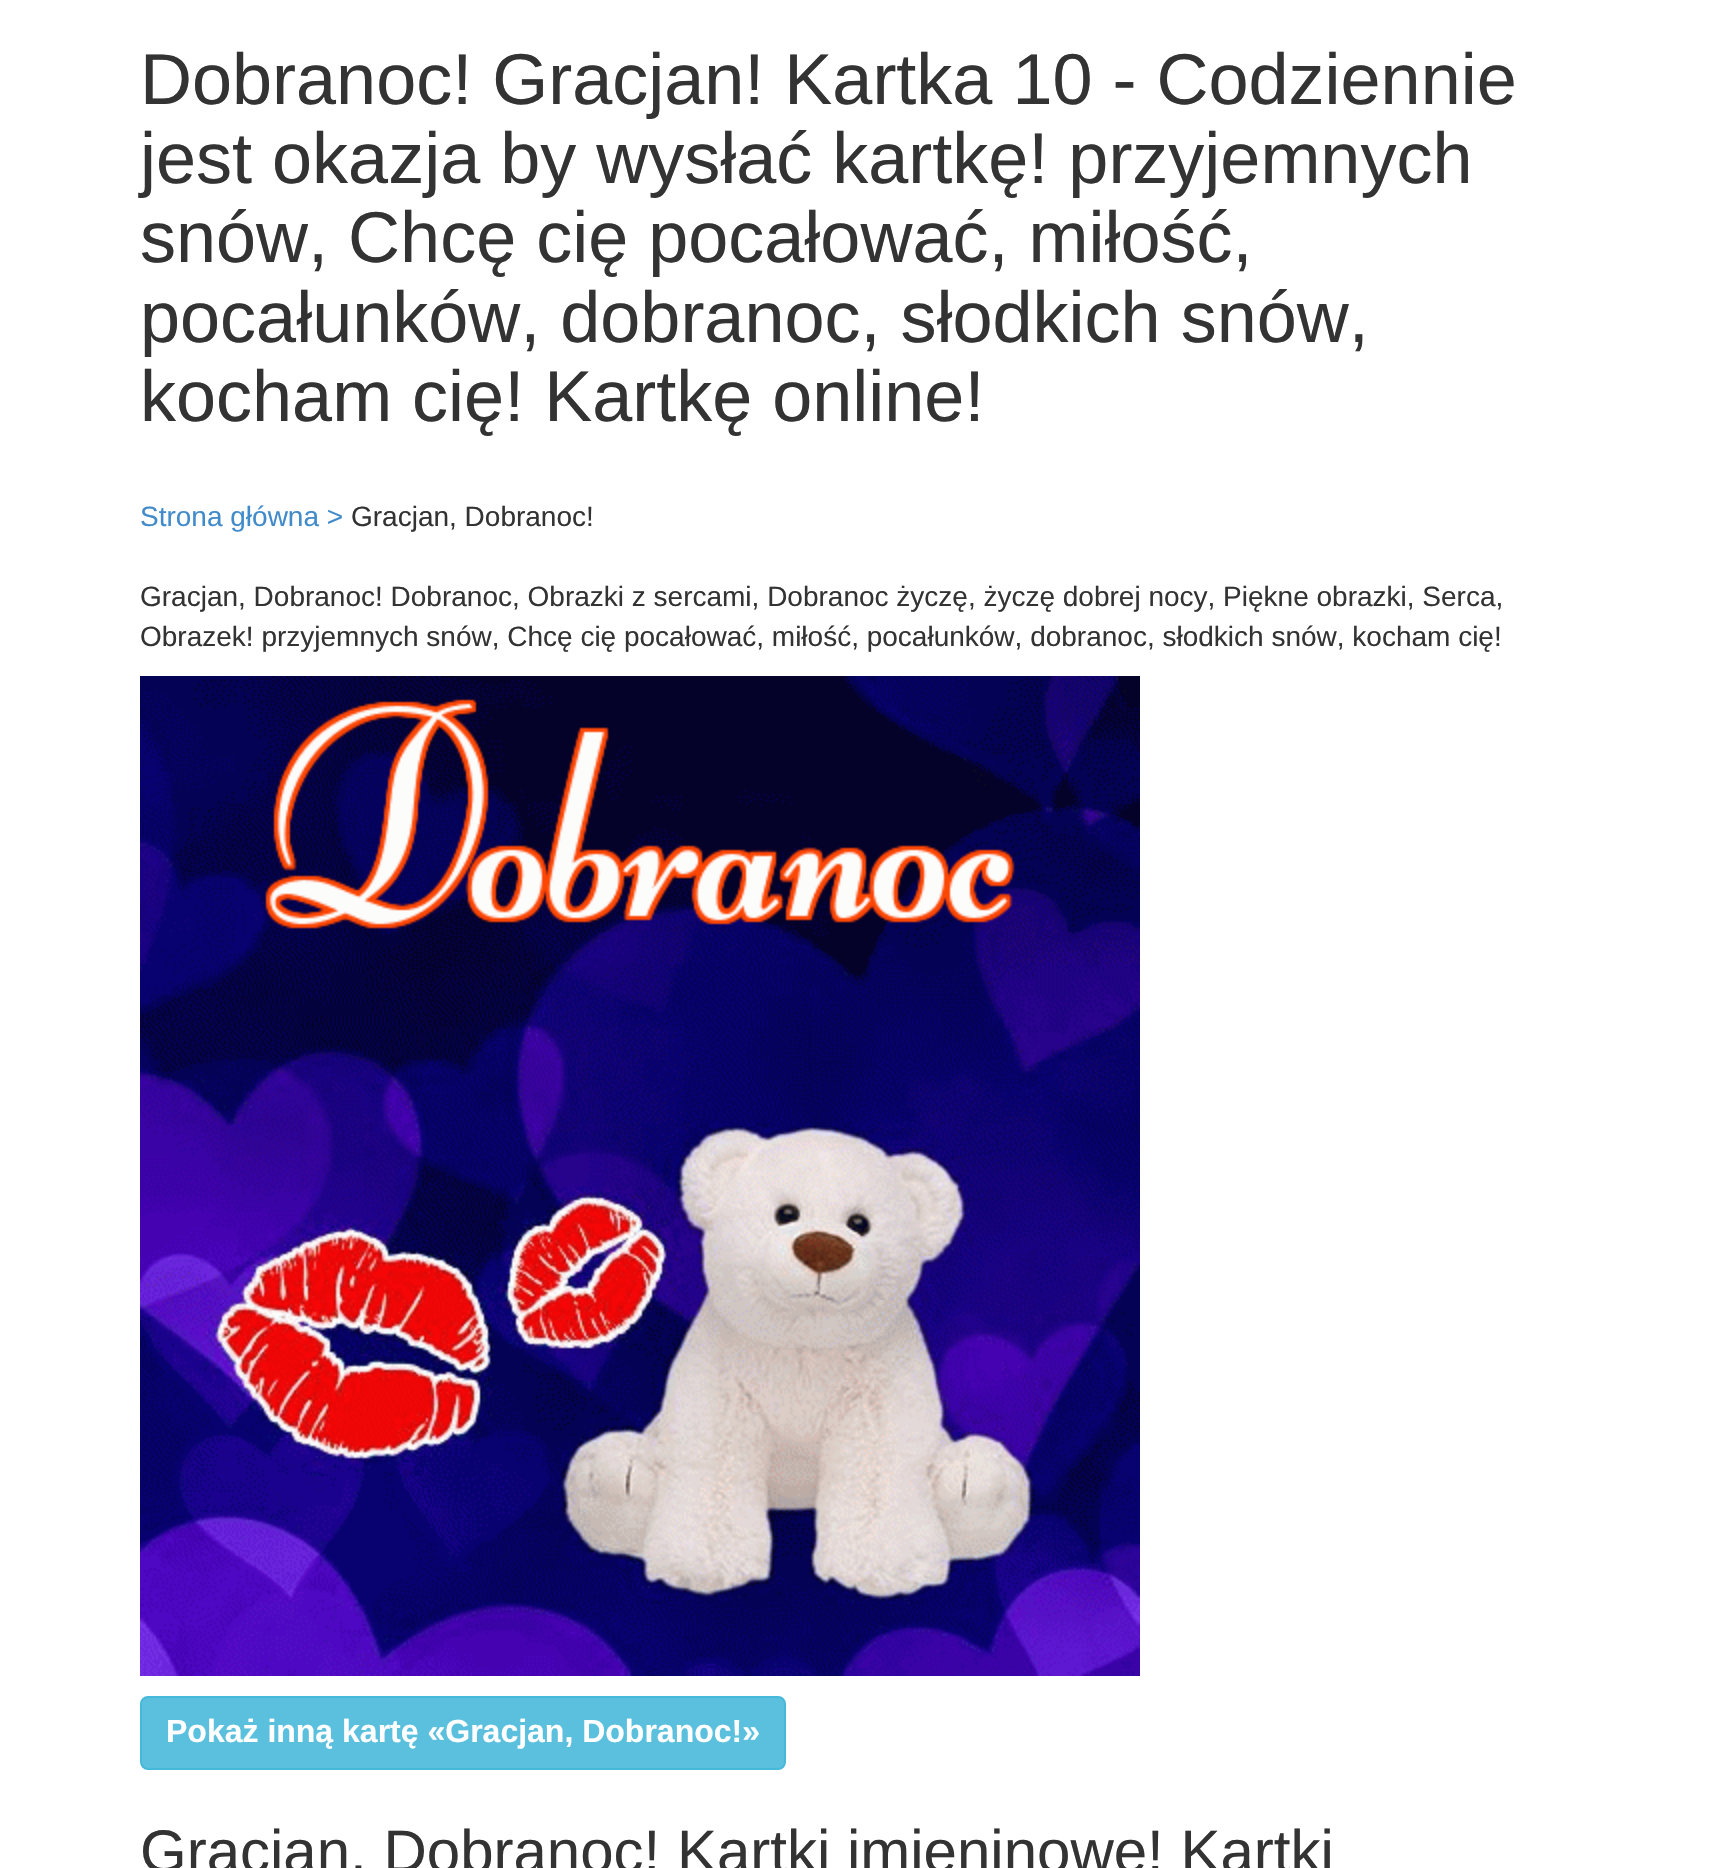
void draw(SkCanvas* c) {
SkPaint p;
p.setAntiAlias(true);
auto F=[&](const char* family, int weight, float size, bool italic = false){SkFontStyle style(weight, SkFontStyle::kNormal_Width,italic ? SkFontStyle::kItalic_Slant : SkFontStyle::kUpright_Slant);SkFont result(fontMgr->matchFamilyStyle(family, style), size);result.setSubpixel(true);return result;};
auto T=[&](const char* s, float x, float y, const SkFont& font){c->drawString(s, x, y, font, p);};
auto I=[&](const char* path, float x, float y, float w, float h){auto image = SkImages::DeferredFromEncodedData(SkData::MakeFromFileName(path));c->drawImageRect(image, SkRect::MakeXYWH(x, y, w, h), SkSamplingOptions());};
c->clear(0xffffffff);
auto f1 = F("Liberation Sans",400,72);
p.setColor(0xff333333);
T("Dobranoc! Gracjan! Kartka 10 - Codziennie",140,104,f1);
T("jest okazja by wysłać kartkę! przyjemnych",140,183,f1);
T("snów, Chcę cię pocałować, miłość,",140,262,f1);
T("pocałunków, dobranoc, słodkich snów,",140,342,f1);
T("kocham cię! Kartkę online!",140,421,f1);
auto f2 = F("Liberation Sans",400,28);
p.setColor(0xff428bca);
T("Strona główna >",140,526,f2);
p.setColor(0xff333333);
T("Gracjan, Dobranoc!",351,526,f2);
T("Gracjan, Dobranoc! Dobranoc, Obrazki z sercami, Dobranoc życzę, życzę dobrej nocy, Piękne obrazki, Serca,",140,606,f2);
T("Obrazek! przyjemnych snów, Chcę cię pocałować, miłość, pocałunków, dobranoc, słodkich snów, kocham cię!",140,646,f2);
I("1.png",140,676,1000,1000);
p.setColor(0xff5bc0de);
c->drawRoundRect(SkRect::MakeXYWH(141,1697,644,72),7,7,p);
p.setStroke(true);
p.setStrokeWidth(2);
p.setColor(0xff46b8da);
c->drawRoundRect(SkRect::MakeXYWH(141,1697,644,72),7,7,p);
auto f3 = F("Liberation Sans",700,32);
p.setStroke(false);
p.setColor(0xffffffff);
T("Pokaż inną kartę «Gracjan, Dobranoc!»",166,1742,f3);
auto f4 = F("Liberation Sans",400,60);
p.setColor(0xff333333);
T("Gracjan, Dobranoc! Kartki imieninowe! Kartki",140,1872,f4);
}
